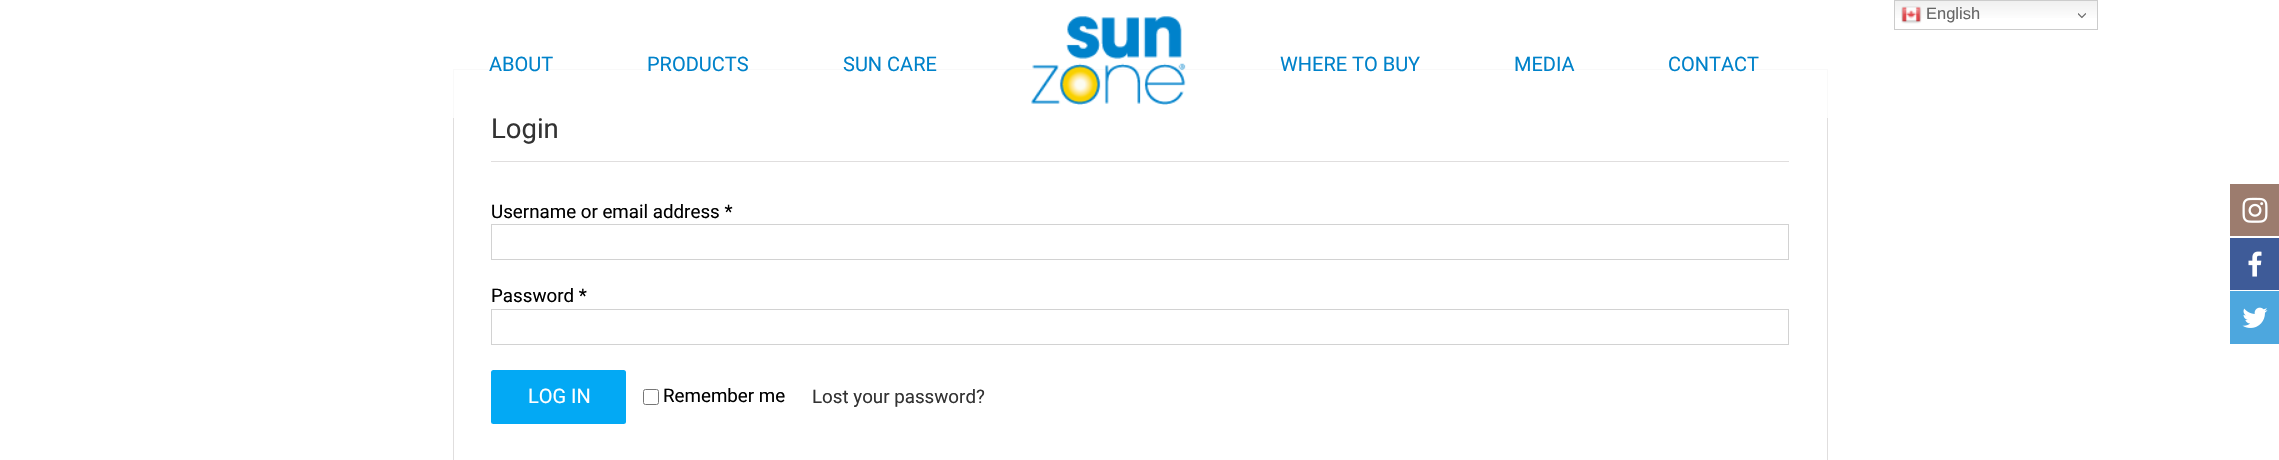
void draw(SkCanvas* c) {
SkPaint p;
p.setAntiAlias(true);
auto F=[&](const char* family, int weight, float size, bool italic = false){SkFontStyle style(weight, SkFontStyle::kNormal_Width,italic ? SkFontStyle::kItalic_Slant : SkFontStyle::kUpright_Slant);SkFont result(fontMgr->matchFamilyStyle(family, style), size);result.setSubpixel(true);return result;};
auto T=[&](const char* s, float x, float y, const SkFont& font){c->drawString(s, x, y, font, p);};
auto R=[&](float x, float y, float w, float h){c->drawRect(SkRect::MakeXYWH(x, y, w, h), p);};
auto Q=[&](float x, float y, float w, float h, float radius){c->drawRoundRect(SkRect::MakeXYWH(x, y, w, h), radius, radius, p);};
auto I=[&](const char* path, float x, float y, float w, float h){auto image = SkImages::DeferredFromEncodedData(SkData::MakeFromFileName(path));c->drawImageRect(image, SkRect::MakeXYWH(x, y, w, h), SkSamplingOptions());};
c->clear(0xffffffff);
{
const SkColor colors[] = {0xffefefef,0xffffffff};
const float stops[] = {0,.7};
const SkPoint ends[] = {{1996,0}, {1996,30}};
p.setShader(SkGradientShader::MakeLinear(ends, colors, stops, 2, SkTileMode::kClamp));
p.setAlpha(255);
}
R(1895,1,202,17);
p.setStroke(true);
p.setStrokeWidth(1);
p.setShader(nullptr);
p.setColor(0xffcccccc);
c->drawRect(SkRect::MakeXYWH(1894.5,.5,203,29),p);
I("1.png",1901,6,21,18);
auto f1 = F("Liberation Sans",400,16.5);
p.setStroke(false);
p.setColor(0xff666666);
T("English",1926,19,f1);
I("2.png",2078,13,8,6);
p.setColor(0xff9c7c6e);
R(2230,184,49,52);
I("3.png",2242,197,26,26);
p.setColor(0xff3e5b98);
R(2230,238,49,52);
I("4.png",2248,251,14,26);
p.setColor(0xff4da7de);
R(2230,291,49,53);
I("5.png",2242,307,26,21);
p.setStroke(true);
p.setColor(0xffe0dede);
c->drawRect(SkRect::MakeXYWH(453.5,69.5,1374,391),p);
p.setStroke(false);
p.setColor(0xccffffff);
R(453,69,1375,49);
auto f2 = F("Roboto",400,20);
p.setColor(0xff0082ca);
T("ABOUT",489,71,f2);
T("PRODUCTS",647,71,f2);
T("SUN CARE",843,71,f2);
I("6.png",1031,16,155,89);
T("WHERE TO BUY",1280,71,f2);
T("MEDIA",1514,71,f2);
T("CONTACT",1668,71,f2);
p.setColor(0xffe0dede);
R(491,161,1298,1);
auto f3 = F("Roboto",400,27.5);
p.setColor(0xff333333);
T("Login",491,138,f3);
auto f4 = F("Roboto",400,18.75);
p.setColor(0xff000000);
T("Username or email address *",491,218,f4);
p.setStroke(true);
p.setColor(0xffd2d2d2);
c->drawRect(SkRect::MakeXYWH(491.5,224.5,1297,35),p);
p.setStroke(false);
p.setColor(0xff000000);
T("Password *",491,302,f4);
p.setStroke(true);
p.setColor(0xffd2d2d2);
c->drawRect(SkRect::MakeXYWH(491.5,309.5,1297,35),p);
p.setStroke(false);
p.setColor(0xff03a9f4);
Q(491,370,135,54,2.5);
p.setColor(0xffffffff);
T("LOG IN",528,403,f2);
p.setStroke(true);
p.setColor(0xff767676);
c->drawRoundRect(SkRect::MakeXYWH(643.5,389.5,15,15),2,2,p);
p.setStroke(false);
p.setColor(0xff000000);
T("Remember me",663,402,f4);
p.setColor(0xff333333);
T("Lost your password?",812,403,f4);
}
